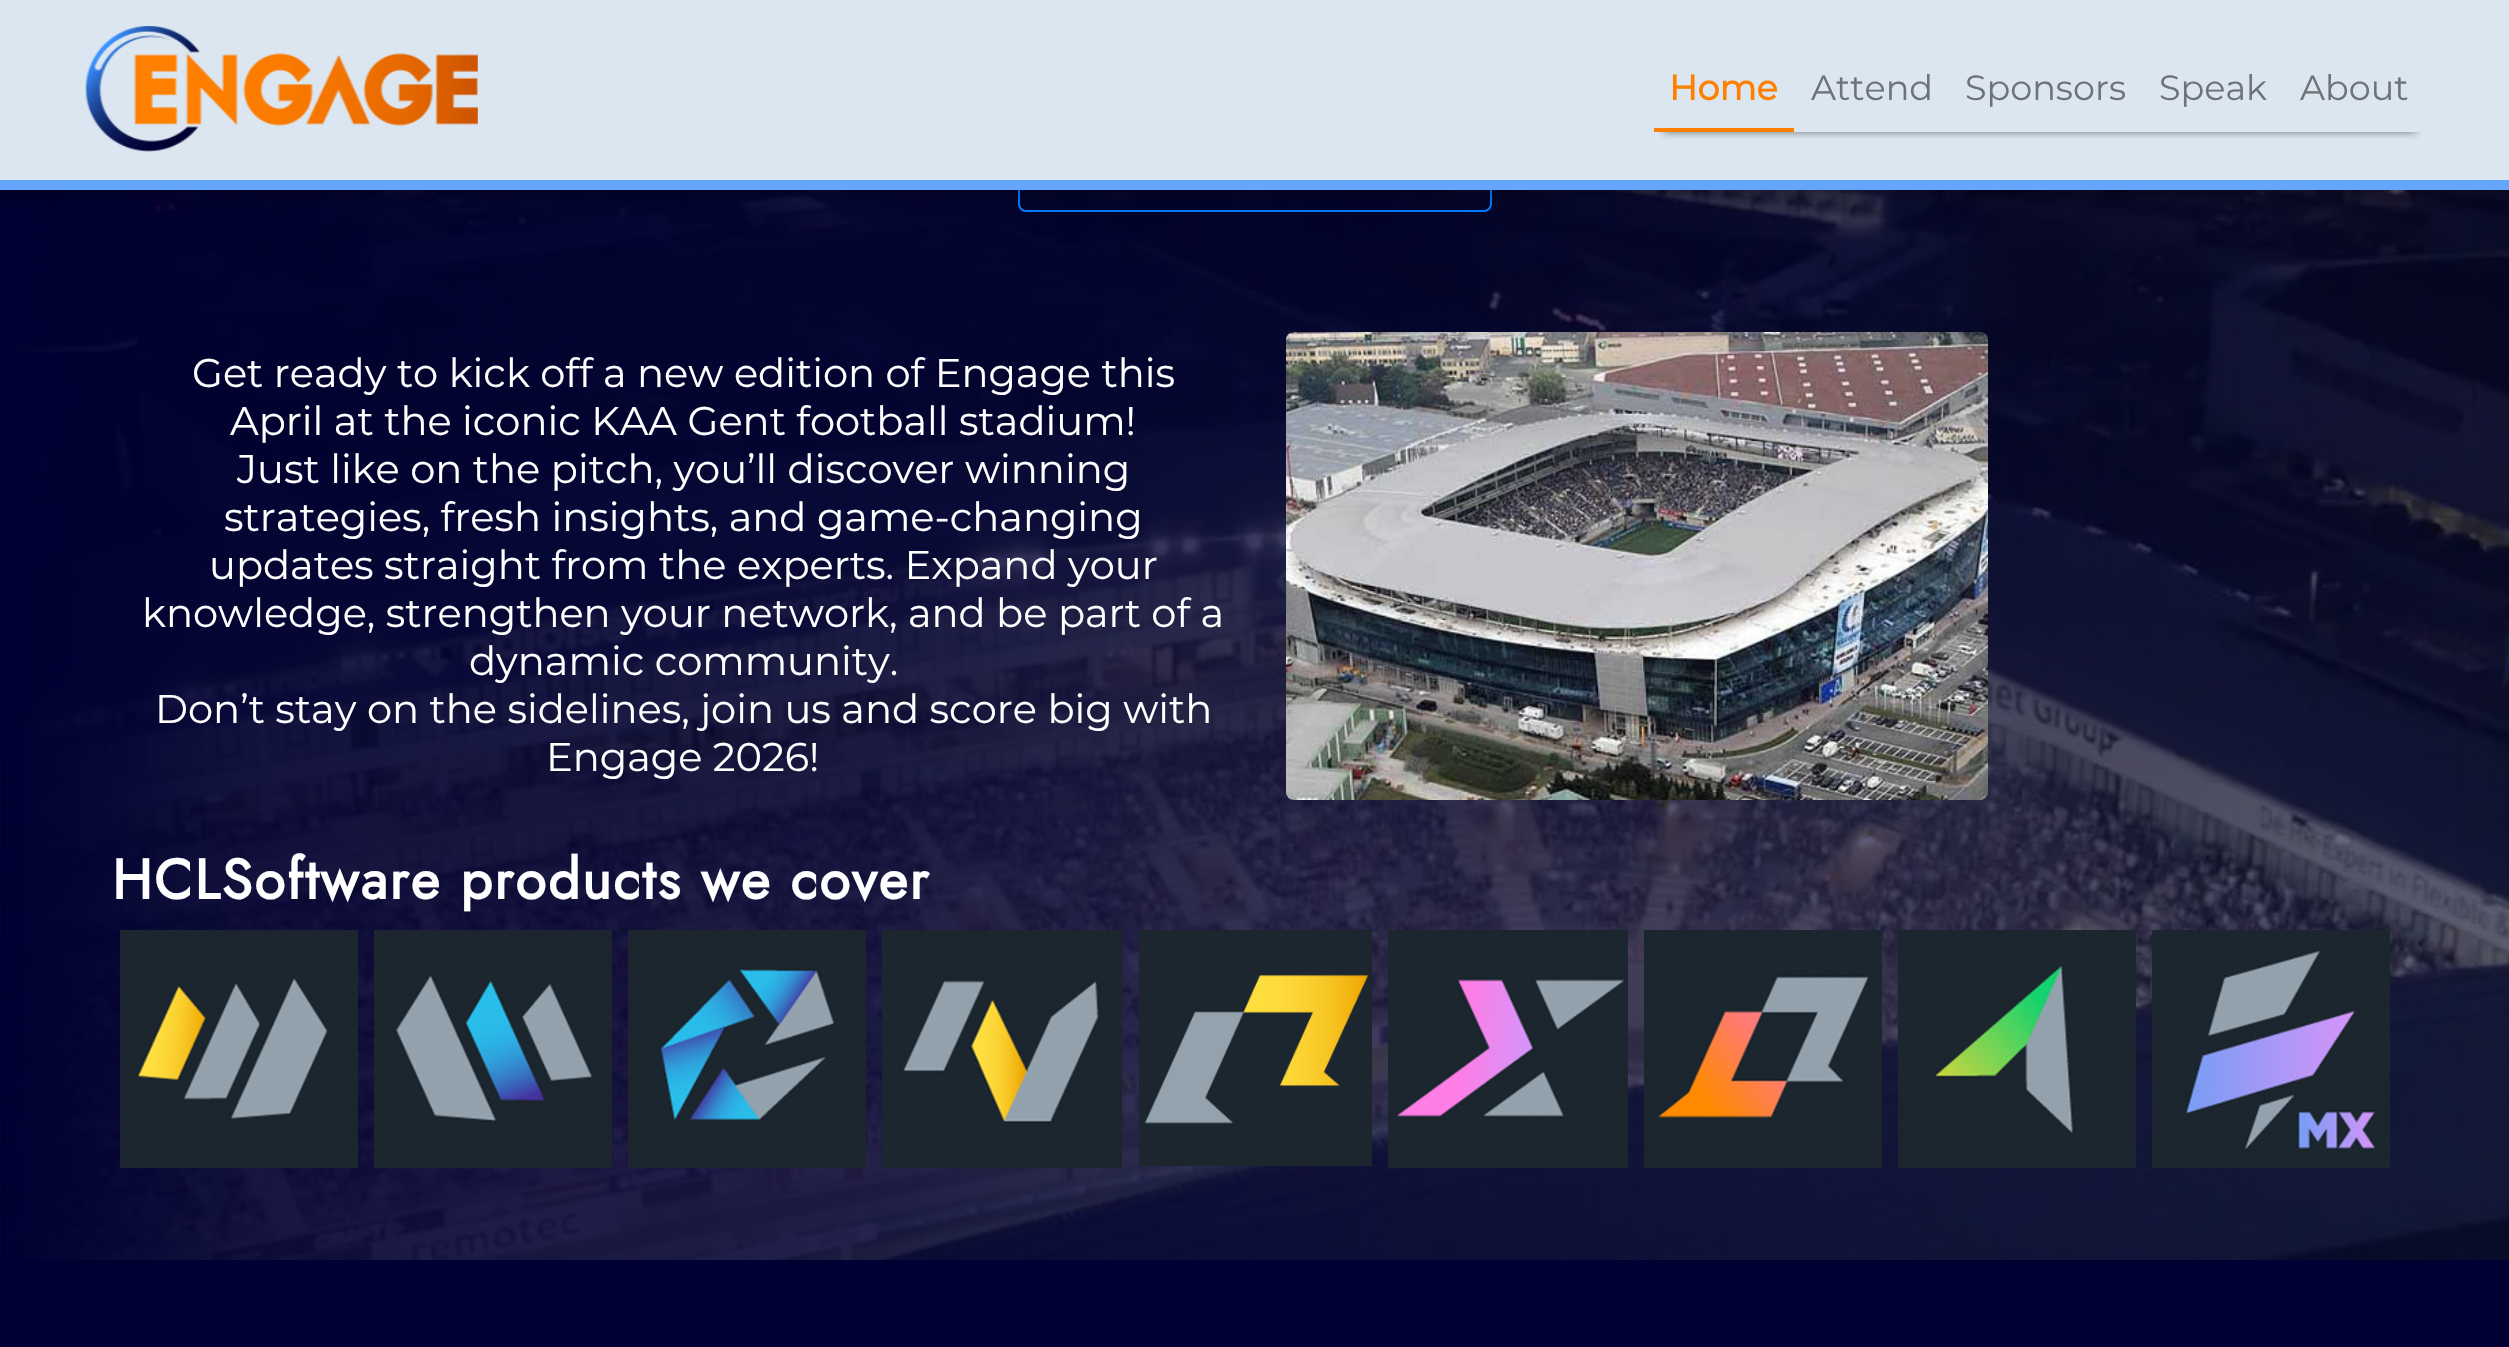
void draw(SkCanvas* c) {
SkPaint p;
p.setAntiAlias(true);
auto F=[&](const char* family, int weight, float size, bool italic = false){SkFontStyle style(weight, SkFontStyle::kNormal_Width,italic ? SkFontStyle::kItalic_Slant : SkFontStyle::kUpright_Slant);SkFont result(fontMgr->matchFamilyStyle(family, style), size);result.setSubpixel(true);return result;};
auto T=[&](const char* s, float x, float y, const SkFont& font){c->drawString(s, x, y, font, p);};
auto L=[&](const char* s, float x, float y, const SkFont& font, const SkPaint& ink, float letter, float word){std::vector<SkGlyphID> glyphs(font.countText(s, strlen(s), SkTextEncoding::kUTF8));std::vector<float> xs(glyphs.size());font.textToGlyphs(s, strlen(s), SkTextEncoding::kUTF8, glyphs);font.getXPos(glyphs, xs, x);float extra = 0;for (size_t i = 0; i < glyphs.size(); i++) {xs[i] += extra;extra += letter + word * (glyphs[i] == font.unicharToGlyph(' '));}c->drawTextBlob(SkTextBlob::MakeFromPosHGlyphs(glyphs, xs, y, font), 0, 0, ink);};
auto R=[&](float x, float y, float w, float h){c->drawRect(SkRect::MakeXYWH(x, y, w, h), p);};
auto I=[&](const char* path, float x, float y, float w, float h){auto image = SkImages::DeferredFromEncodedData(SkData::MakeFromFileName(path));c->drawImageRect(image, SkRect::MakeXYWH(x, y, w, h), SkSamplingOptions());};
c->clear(0xff000032);
I("2.png",0,190,2509,1070);
p.setStroke(true);
p.setStrokeWidth(2);
p.setColor(0xff007bff);
c->drawRoundRect(SkRect::MakeXYWH(1019,137,472,74),7,7,p);
p.setStroke(false);
p.setColor(0x1f000000);
p.setMaskFilter(SkMaskFilter::MakeBlur(kNormal_SkBlurStyle, 10));
c->drawRect(SkRect::MakeXYWH(0,4,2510,190),p);
p.setMaskFilter(nullptr);
p.setColor(0x29000000);
p.setMaskFilter(SkMaskFilter::MakeBlur(kNormal_SkBlurStyle, 5));
c->drawRect(SkRect::MakeXYWH(0,4,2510,190),p);
p.setMaskFilter(nullptr);
p.setColor(0xffdce6f0);
R(0,0,2509,180);
p.setColor(0xff63a6fb);
R(0,180,2509,10);
I("1.png",85,26,393,126);
c->save();
c->clipRect(SkRect::MakeXYWH(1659,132,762,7));
p.setColor(0x80000000);
p.setMaskFilter(SkMaskFilter::MakeBlur(kNormal_SkBlurStyle, 4));
c->drawRect(SkRect::MakeXYWH(1664,68,752,64),p);
p.setMaskFilter(nullptr);
c->restore();
p.setColor(0xffff7f00);
R(1654,128,140,4);
auto f1 = F("Montserrat",700,35);
T("Home",1669,100,f1);
auto f2 = F("Montserrat",100,35);
p.setColor(0xff6e7378);
T("Attend",1811,100,f2);
T("Sponsors",1965,100,f2);
T("Speak",2159,100,f2);
T("About",2300,100,f2);
auto f3 = F("Montserrat",100,40);
p.setColor(0xffffffff);
T("Get ready to kick off a new edition of Engage this",192,387,f3);
T("April at the iconic KAA Gent football stadium!",230,435,f3);
T("Just like on the pitch, you’ll discover winning",237,483,f3);
T("strategies, fresh insights, and game-changing",224,531,f3);
T("updates straight from the experts. Expand your",209,579,f3);
T("knowledge, strengthen your network, and be part of a",142,627,f3);
T("dynamic community.",469,675,f3);
T("Don’t stay on the sidelines, join us and score big with",155,723,f3);
T("Engage 2026!",546,771,f3);
I("3.png",1286,332,702,468);
auto f4 = F("Jost",700,56);
L("HCLSoftware products we cover",112,899,f4,p,2,0);
I("4.png",120,930,238,238);
I("5.png",374,930,238,238);
I("6.png",628,930,238,238);
I("7.png",882,930,240,238);
I("8.png",1139,930,233,236);
I("9.png",1388,930,240,238);
I("10.png",1644,930,238,238);
I("11.png",1898,930,238,238);
I("12.png",2152,930,238,238);
}
